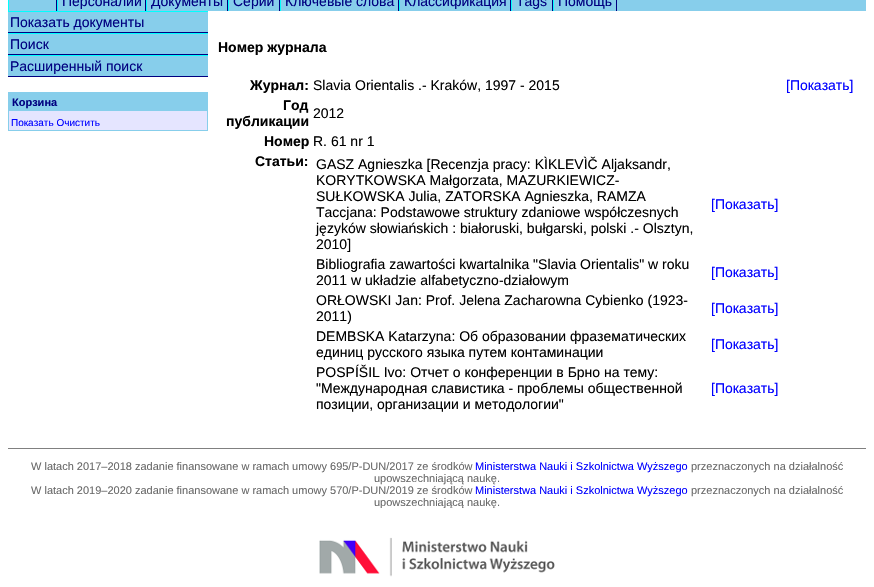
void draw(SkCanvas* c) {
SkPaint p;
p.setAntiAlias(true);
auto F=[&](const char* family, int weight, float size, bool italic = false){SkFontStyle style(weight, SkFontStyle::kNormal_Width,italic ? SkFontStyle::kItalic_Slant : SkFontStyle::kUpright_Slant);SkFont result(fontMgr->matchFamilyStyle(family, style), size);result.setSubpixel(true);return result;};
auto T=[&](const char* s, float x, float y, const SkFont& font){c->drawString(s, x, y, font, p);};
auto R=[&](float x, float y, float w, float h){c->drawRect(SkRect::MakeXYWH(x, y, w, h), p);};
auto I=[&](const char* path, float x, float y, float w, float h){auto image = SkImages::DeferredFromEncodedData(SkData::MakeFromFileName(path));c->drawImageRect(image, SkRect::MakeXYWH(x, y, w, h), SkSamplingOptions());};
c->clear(0xffffffff);
p.setColor(0xff87ceeb);
R(9,0,857,11);
p.setColor(0xff000080);
R(56,0,1,11);
p.setColor(0xff00ffff);
R(8,0,1,11);
p.setColor(0xff000080);
R(145,0,1,11);
p.setColor(0xff00ffff);
R(57,0,1,11);
auto f1 = F("Liberation Sans",400,14);
p.setColor(0xff000080);
T("Персоналии",62,6,f1);
R(227,0,1,11);
p.setColor(0xff00ffff);
R(146,0,1,11);
p.setColor(0xff000080);
T("Документы",151,6,f1);
R(279,0,1,11);
p.setColor(0xff00ffff);
R(228,0,1,11);
p.setColor(0xff000080);
T("Серии",233,6,f1);
R(398,0,1,11);
p.setColor(0xff00ffff);
R(280,0,1,11);
p.setColor(0xff000080);
T("Ключевые слова",285,6,f1);
R(510,0,1,11);
p.setColor(0xff00ffff);
R(399,0,1,11);
p.setColor(0xff000080);
T("Классификация",404,6,f1);
R(552,0,1,11);
p.setColor(0xff00ffff);
R(511,0,1,11);
p.setColor(0xff000080);
T("Tags",516,6,f1);
R(616,0,1,11);
p.setColor(0xff00ffff);
R(553,0,1,11);
p.setColor(0xff000080);
T("Помощь",558,6,f1);
p.setColor(0xff87ceeb);
R(8,12,200,64);
p.setColor(0xff00ffff);
R(8,11,200,1);
p.setColor(0xff000080);
R(8,32,200,1);
T("Показать документы",10,27,f1);
p.setColor(0xff00ffff);
R(8,33,200,1);
p.setColor(0xff000080);
R(8,54,200,1);
T("Поиск",10,49,f1);
p.setColor(0xff00ffff);
R(8,55,200,1);
p.setColor(0xff000080);
R(8,76,200,1);
T("Расширенный поиск",10,71,f1);
p.setColor(0xffe5e5ff);
R(9,111,198,19);
p.setStroke(true);
p.setStrokeWidth(1);
p.setColor(0xff87ceeb);
c->drawRect(SkRect::MakeXYWH(8.5,92.5,199,38),p);
p.setStroke(false);
R(9,93,198,18);
auto f2 = F("Liberation Sans",700,11);
p.setColor(0xff000080);
T("Корзина",12,106,f2);
auto f3 = F("Liberation Sans",400,10);
p.setColor(0xff0000ff);
T("Показать Очистить",11,126,f3);
auto f4 = F("Liberation Sans",700,14);
p.setColor(0xff000000);
T("Номер журнала",218,52,f4);
T("Журнал:",250,90,f4);
T("Slavia Orientalis .- Kraków, 1997 - 2015",313,90,f1);
p.setColor(0xff0000ff);
T("[Показать]",786,90,f1);
p.setColor(0xff000000);
T("Год",283,110,f4);
T("публикации",226,126,f4);
T("2012",313,118,f1);
T("Номер",264,146,f4);
T("R. 61 nr 1",313,146,f1);
T("Статьи:",255,166,f4);
T("GASZ Agnieszka [Recenzja pracy: KÌKLEVÌČ Aljaksandr,",316,169,f1);
T("KORYTKOWSKA Małgorzata, MAZURKIEWICZ-",316,185,f1);
T("SUŁKOWSKA Julia, ZATORSKA Agnieszka, RAMZA",316,201,f1);
T("Taccjana: Podstawowe struktury zdaniowe współczesnych",316,217,f1);
T("języków słowiańskich : białoruski, bułgarski, polski .- Olsztyn,",316,233,f1);
T("2010]",316,249,f1);
p.setColor(0xff0000ff);
T("[Показать]",711,209,f1);
p.setColor(0xff000000);
T("Bibliografia zawartości kwartalnika \"Slavia Orientalis\" w roku",316,269,f1);
T("2011 w układzie alfabetyczno-działowym",316,285,f1);
p.setColor(0xff0000ff);
T("[Показать]",711,277,f1);
p.setColor(0xff000000);
T("ORŁOWSKI Jan: Prof. Jelena Zacharowna Cybienko (1923-",316,305,f1);
T("2011)",316,321,f1);
p.setColor(0xff0000ff);
T("[Показать]",711,313,f1);
p.setColor(0xff000000);
T("DEMBSKA Katarzyna: Об образовании фразематических",316,341,f1);
T("единиц русского языка путем контаминации",316,357,f1);
p.setColor(0xff0000ff);
T("[Показать]",711,349,f1);
p.setColor(0xff000000);
T("POSPÍŠIL Ivo: Отчет о конференции в Брно на тему:",316,377,f1);
T("\"Международная славистика - проблемы общественной",316,393,f1);
T("позиции, организации и методологии\"",316,409,f1);
p.setColor(0xff0000ff);
T("[Показать]",711,393,f1);
p.setColor(0xff808080);
R(8,448,858,1);
auto f5 = F("Liberation Sans",400,11);
p.setColor(0xff696969);
T("W latach 2017–2018 zadanie finansowane w ramach umowy 695/P-DUN/2017 ze środków",31,470,f5);
p.setColor(0xff0000ff);
T("Ministerstwa Nauki i Szkolnictwa Wyższego",475,470,f5);
p.setColor(0xff696969);
T("przeznaczonych na działalność",691,470,f5);
T("upowszechniającą naukę.",374,482,f5);
T("W latach 2019–2020 zadanie finansowane w ramach umowy 570/P-DUN/2019 ze środków",31,494,f5);
p.setColor(0xff0000ff);
T("Ministerstwa Nauki i Szkolnictwa Wyższego",475,494,f5);
p.setColor(0xff696969);
T("przeznaczonych na działalność",691,494,f5);
T("upowszechniającą naukę.",374,506,f5);
I("1.png",319,508,236,69);
}
